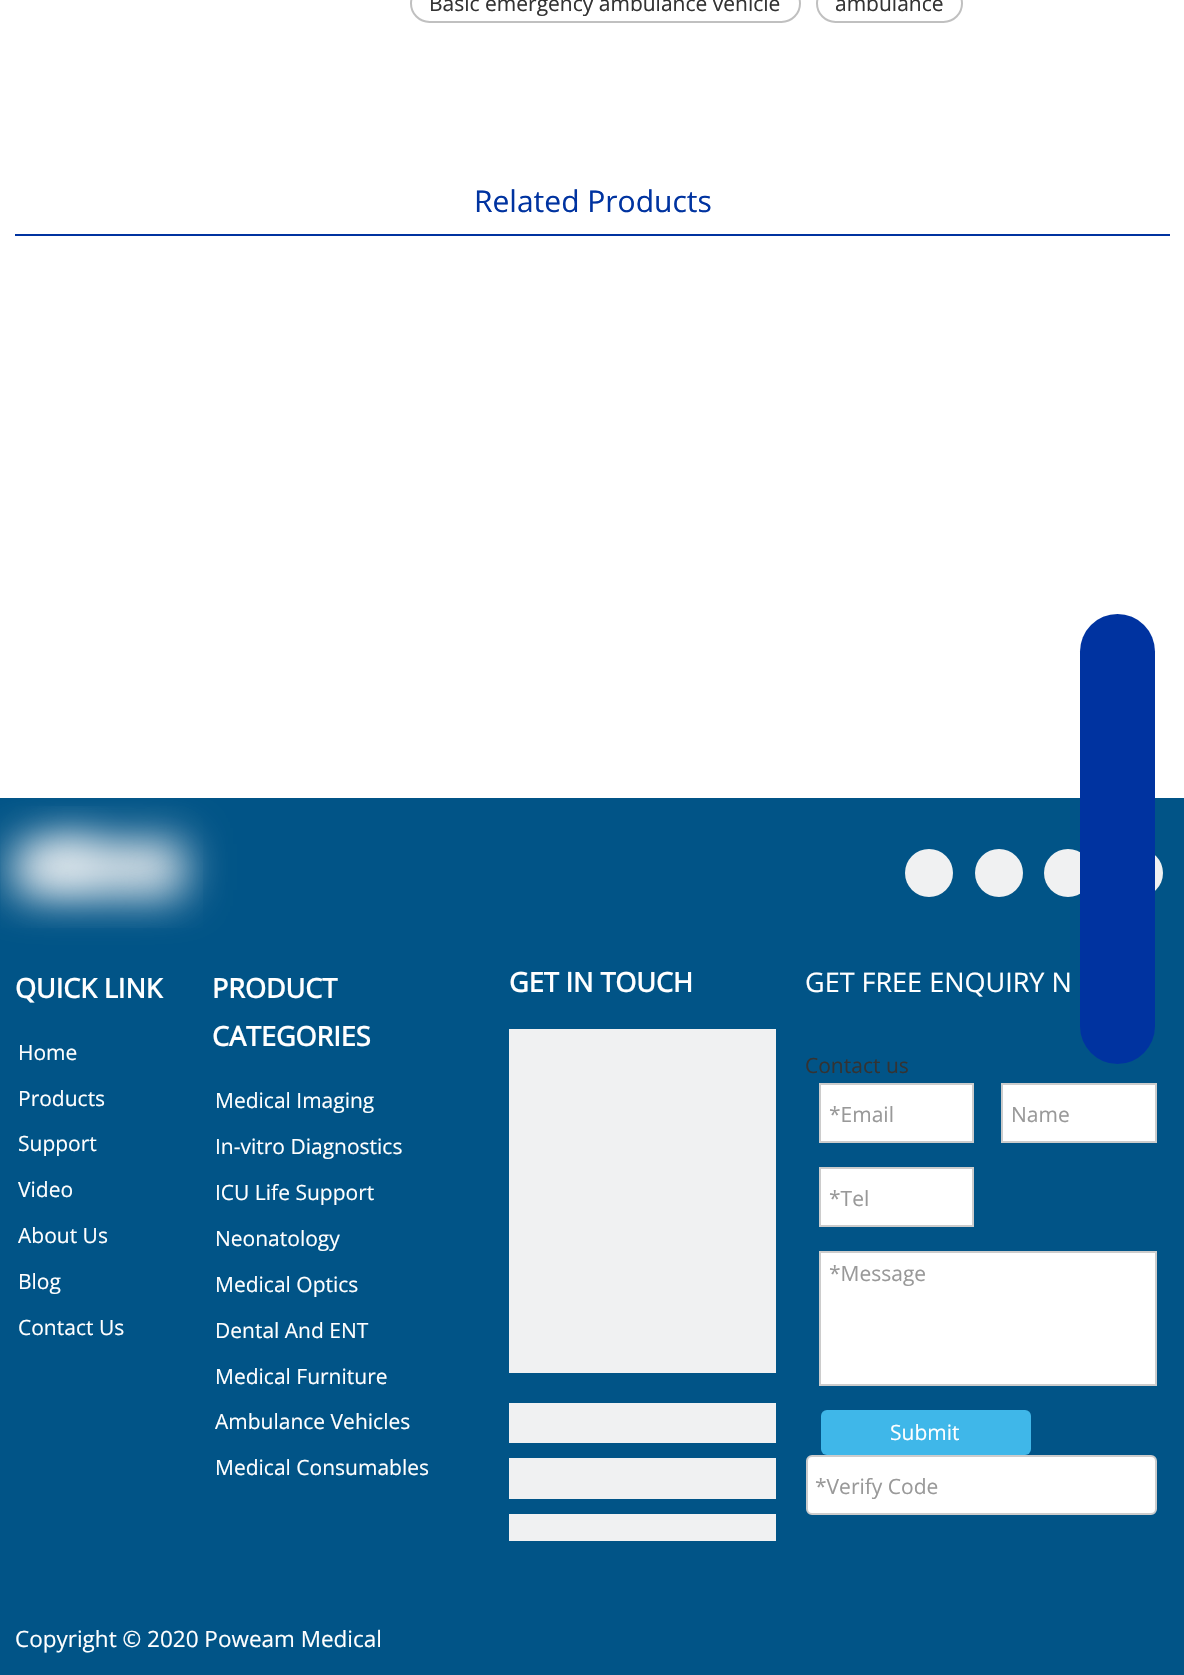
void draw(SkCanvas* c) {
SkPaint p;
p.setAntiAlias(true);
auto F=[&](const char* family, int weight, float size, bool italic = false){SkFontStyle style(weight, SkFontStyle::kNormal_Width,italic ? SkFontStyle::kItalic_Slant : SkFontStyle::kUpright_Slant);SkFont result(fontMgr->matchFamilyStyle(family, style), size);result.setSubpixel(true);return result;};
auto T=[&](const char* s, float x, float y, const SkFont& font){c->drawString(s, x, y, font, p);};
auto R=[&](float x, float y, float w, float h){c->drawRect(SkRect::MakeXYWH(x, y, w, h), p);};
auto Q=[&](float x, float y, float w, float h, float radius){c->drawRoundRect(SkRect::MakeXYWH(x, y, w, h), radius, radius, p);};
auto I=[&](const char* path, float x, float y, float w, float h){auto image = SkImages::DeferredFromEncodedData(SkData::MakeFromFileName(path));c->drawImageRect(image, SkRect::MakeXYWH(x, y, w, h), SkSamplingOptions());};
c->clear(0xffffffff);
p.setStroke(true);
p.setStrokeWidth(2);
p.setColor(0xffc0c0c0);
c->drawRoundRect(SkRect::MakeXYWH(411,-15,389,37),18.5,18.5,p);
auto f1 = F("Open Sans",400,21);
p.setStroke(false);
p.setColor(0xff333333);
T("Basic emergency ambulance vehicle",429,11,f1);
p.setStroke(true);
p.setColor(0xffc0c0c0);
c->drawRoundRect(SkRect::MakeXYWH(817,-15,145,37),18.5,18.5,p);
p.setStroke(false);
p.setColor(0xff333333);
T("ambulance",835,11,f1);
p.setColor(0xff0033a0);
R(15,234,1155,2);
auto f2 = F("Open Sans",400,30);
T("Related Products",474,212,f2);
p.setColor(0xff015487);
R(0,798,1184,877);
c->save();
c->clipRect(SkRect::MakeXYWH(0,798,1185,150));
p.setColor(0xfff0f1f2);
p.setMaskFilter(SkMaskFilter::MakeBlur(kNormal_SkBlurStyle, 22.5));
c->drawRect(SkRect::MakeXYWH(15,843,168,48),p);
p.setMaskFilter(nullptr);
c->restore();
I("1.png",1,806,202,122);
c->drawCircle(929,873,24,p);
c->drawCircle(999,873,24,p);
c->drawCircle(1068,873,24,p);
c->drawCircle(1139,873,24,p);
auto f3 = F("Open Sans",700,27);
p.setColor(0xffffffff);
T("QUICK LINK",15,998,f3);
T("Home",18,1060,f1);
T("Products",18,1106,f1);
T("Support",18,1151,f1);
T("Video",18,1197,f1);
T("About Us",18,1243,f1);
T("Blog",18,1289,f1);
T("Contact Us",18,1335,f1);
p.setColor(0xff0033a0);
Q(1080,614,75,450,37.5);
p.setColor(0xffffffff);
T("PRODUCT",212,998,f3);
T("CATEGORIES",212,1046,f3);
T("Medical Imaging",215,1108,f1);
T("In-vitro Diagnostics",215,1154,f1);
T("ICU Life Support",215,1200,f1);
T("Neonatology",215,1246,f1);
T("Medical Optics",215,1292,f1);
T("Dental And ENT",215,1338,f1);
T("Medical Furniture",215,1384,f1);
T("Ambulance Vehicles",215,1429,f1);
T("Medical Consumables",215,1475,f1);
T("GET IN TOUCH",509,992,f3);
p.setColor(0xfff0f1f2);
R(509,1029,267,344);
R(509,1403,267,40);
R(509,1458,267,41);
R(509,1514,267,27);
auto f4 = F("Open Sans",400,27);
p.setColor(0xffffffff);
T("GET FREE ENQUIRY N",805,992,f4);
p.setColor(0xff333333);
T("Contact us",805,1073,f1);
p.setColor(0xffffffff);
c->drawRect(SkRect::MakeXYWH(820,1084,153,58),p);
p.setStroke(true);
p.setColor(0xffcccccc);
c->drawRect(SkRect::MakeXYWH(820,1084,153,58),p);
p.setStroke(false);
p.setColor(0xff999999);
T("*Email",829,1122,f1);
p.setColor(0xffffffff);
c->drawRect(SkRect::MakeXYWH(1002,1084,154,58),p);
p.setStroke(true);
p.setColor(0xffcccccc);
c->drawRect(SkRect::MakeXYWH(1002,1084,154,58),p);
p.setStroke(false);
p.setColor(0xff999999);
T("Name",1011,1122,f1);
p.setColor(0xffffffff);
c->drawRect(SkRect::MakeXYWH(820,1168,153,58),p);
p.setStroke(true);
p.setColor(0xffcccccc);
c->drawRect(SkRect::MakeXYWH(820,1168,153,58),p);
p.setStroke(false);
p.setColor(0xff999999);
T("*Tel",829,1206,f1);
p.setColor(0xffffffff);
c->drawRect(SkRect::MakeXYWH(820,1252,336,133),p);
p.setStroke(true);
p.setColor(0xffcccccc);
c->drawRect(SkRect::MakeXYWH(820,1252,336,133),p);
p.setStroke(false);
p.setColor(0xff999999);
T("*Message",829,1281,f1);
p.setColor(0xff3fb7e9);
Q(821,1410,210,45,6);
p.setColor(0xffffffff);
T("Submit",890,1440,f1);
c->drawRoundRect(SkRect::MakeXYWH(807,1456,349,58),5,5,p);
p.setStroke(true);
p.setColor(0xffcccccc);
c->drawRoundRect(SkRect::MakeXYWH(807,1456,349,58),5,5,p);
p.setStroke(false);
p.setColor(0xff999999);
T("*Verify Code",815,1494,f1);
auto f5 = F("Open Sans",400,22.5);
p.setColor(0xffffffff);
T("Copyright © 2020 Poweam Medical",15,1647,f5);
}
